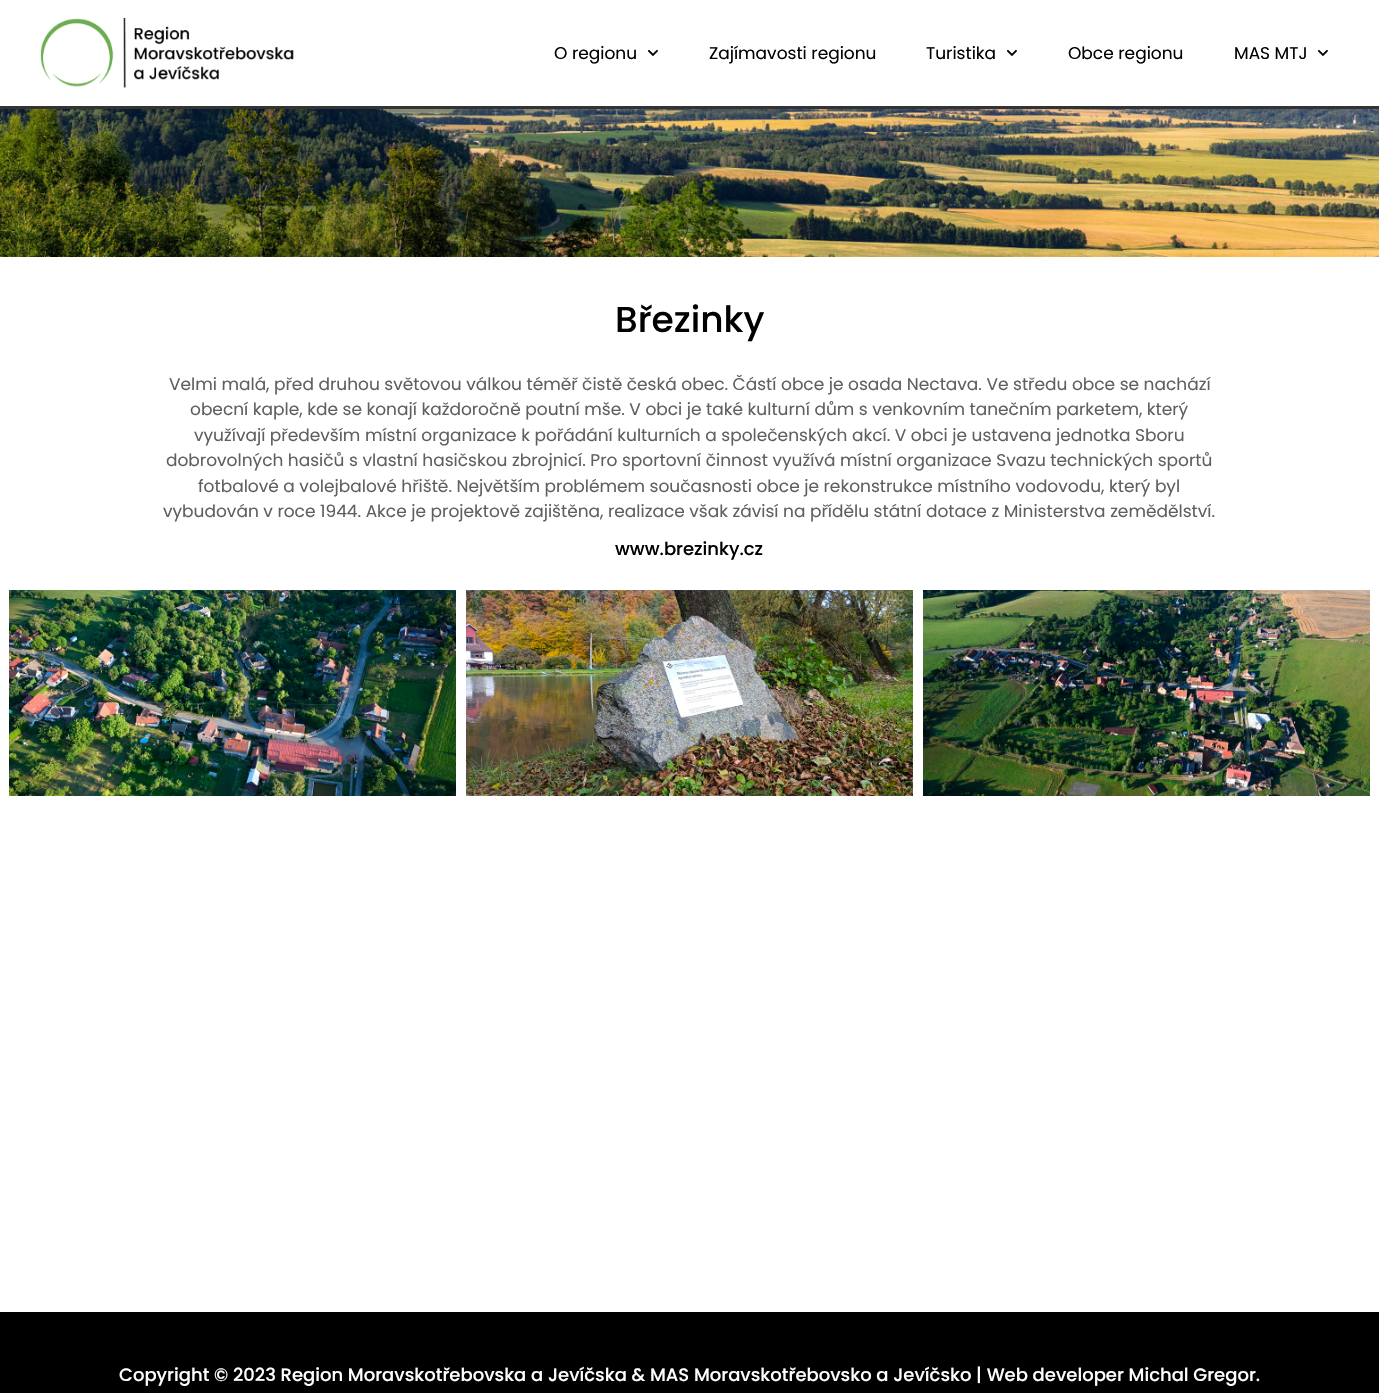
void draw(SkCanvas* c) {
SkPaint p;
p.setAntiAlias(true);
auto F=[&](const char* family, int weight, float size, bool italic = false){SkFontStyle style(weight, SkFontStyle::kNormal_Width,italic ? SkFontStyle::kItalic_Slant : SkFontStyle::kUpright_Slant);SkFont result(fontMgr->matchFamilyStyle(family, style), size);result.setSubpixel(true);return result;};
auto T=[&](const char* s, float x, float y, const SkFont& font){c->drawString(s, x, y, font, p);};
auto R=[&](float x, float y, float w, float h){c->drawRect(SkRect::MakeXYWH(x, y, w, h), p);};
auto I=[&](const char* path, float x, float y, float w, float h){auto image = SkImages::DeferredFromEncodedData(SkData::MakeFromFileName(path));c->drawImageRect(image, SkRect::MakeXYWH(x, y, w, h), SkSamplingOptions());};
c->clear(0xffffffff);
p.setColor(0xff333333);
R(0,106,1379,3);
I("1.png",40,18,254,70);
auto f1 = F("Poppins",400,17);
p.setColor(0xff000000);
T("O regionu",554,59,f1);
I("2.png",647,49,11,7);
T("Zajímavosti regionu",709,59,f1);
T("Turistika",926,59,f1);
I("2.png",1006,49,11,7);
T("Obce regionu",1068,59,f1);
T("MAS MTJ",1234,59,f1);
I("2.png",1317,49,11,7);
I("3.png",0,109,1379,148);
auto f2 = F("Poppins",500,36);
T("Březinky",615,332,f2);
p.setColor(0xff5f5f5f);
T("Velmi malá, před druhou světovou válkou téměř čistě česká obec. Částí obce je osada Nectava. Ve středu obce se nachází",169,390,f1);
T("obecní kaple, kde se konají každoročně poutní mše. V obci je také kulturní dům s venkovním tanečním parketem, který",190,415,f1);
T("využívají především místní organizace k pořádání kulturních a společenských akcí. V obci je ustavena jednotka Sboru",194,441,f1);
T("dobrovolných hasičů s vlastní hasičskou zbrojnicí. Pro sportovní činnost využívá místní organizace Svazu technických sportů",166,466,f1);
T("fotbalové a volejbalové hřiště. Největším problémem současnosti obce je rekonstrukce místního vodovodu, který byl",198,492,f1);
T("vybudován v roce 1944. Akce je projektově zajištěna, realizace však závisí na přídělu státní dotace z Ministerstva zemědělství.",163,517,f1);
auto f3 = F("Poppins",500,18);
p.setColor(0xff000000);
T("www.brezinky.cz",615,555,f3);
I("4.png",9,590,447,206);
I("5.png",466,590,447,206);
I("6.png",923,590,447,206);
R(0,1312,1379,81);
p.setColor(0xffffffff);
T("Copyright © 2023 Region Moravskotřebovska a Jevíčska & MAS Moravskotřebovsko a Jevíčsko | Web developer Michal Gregor.",119,1381,f3);
}
